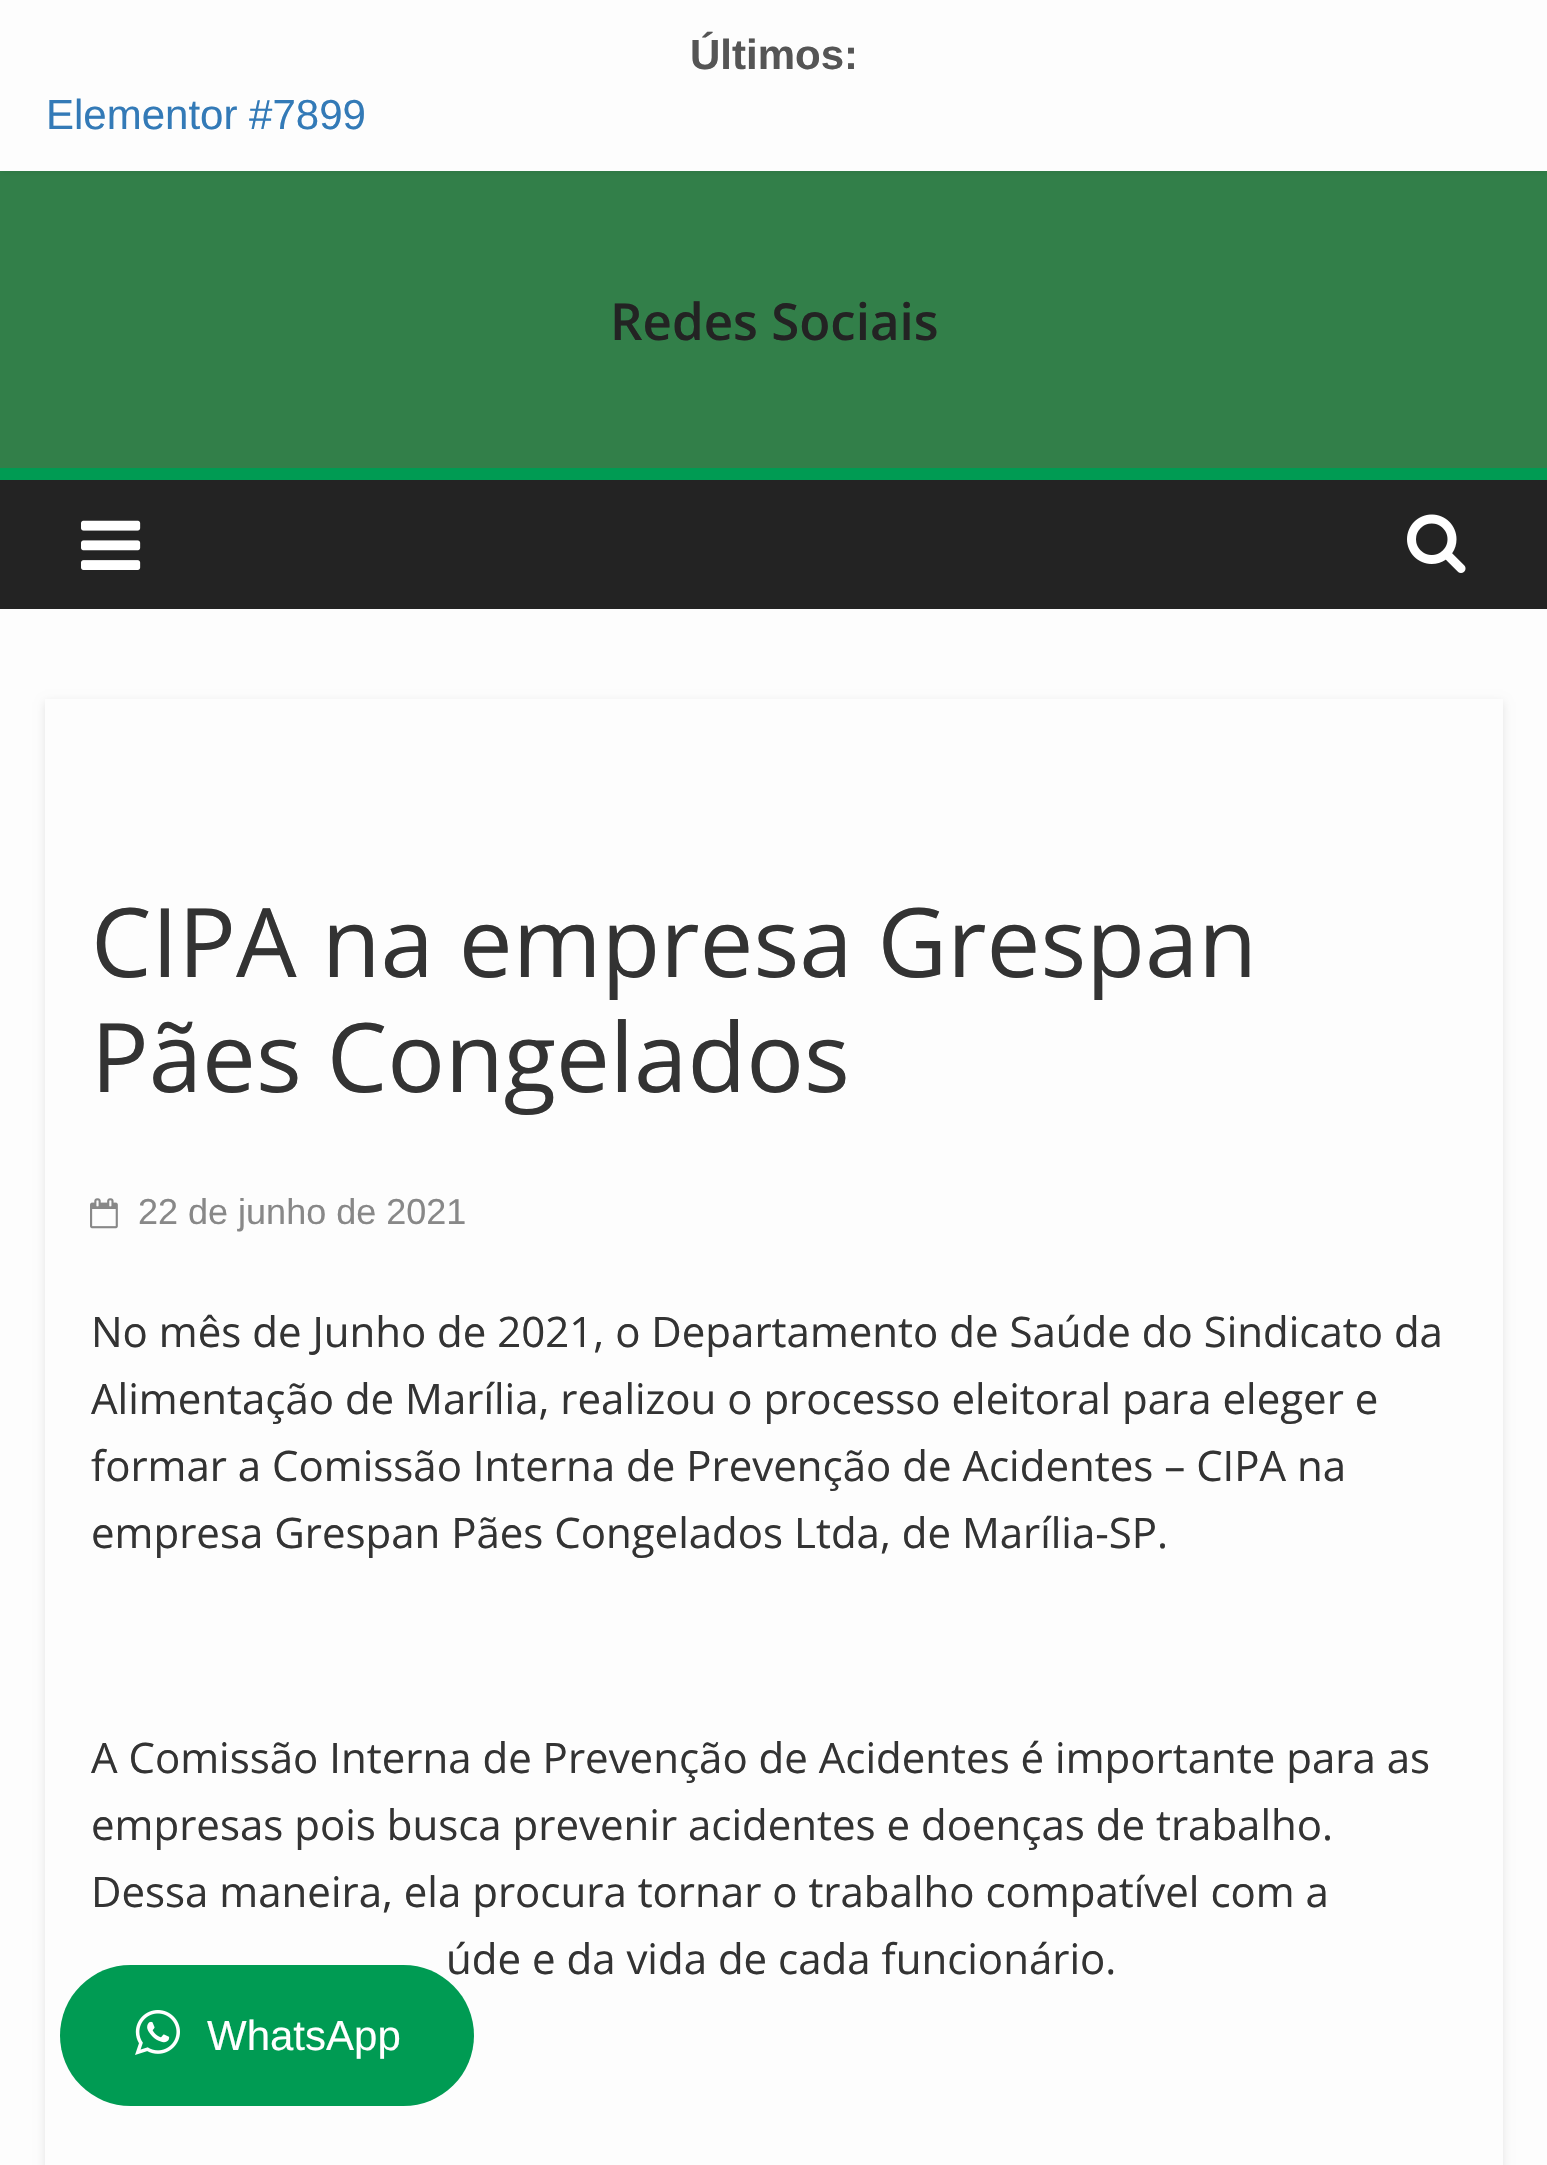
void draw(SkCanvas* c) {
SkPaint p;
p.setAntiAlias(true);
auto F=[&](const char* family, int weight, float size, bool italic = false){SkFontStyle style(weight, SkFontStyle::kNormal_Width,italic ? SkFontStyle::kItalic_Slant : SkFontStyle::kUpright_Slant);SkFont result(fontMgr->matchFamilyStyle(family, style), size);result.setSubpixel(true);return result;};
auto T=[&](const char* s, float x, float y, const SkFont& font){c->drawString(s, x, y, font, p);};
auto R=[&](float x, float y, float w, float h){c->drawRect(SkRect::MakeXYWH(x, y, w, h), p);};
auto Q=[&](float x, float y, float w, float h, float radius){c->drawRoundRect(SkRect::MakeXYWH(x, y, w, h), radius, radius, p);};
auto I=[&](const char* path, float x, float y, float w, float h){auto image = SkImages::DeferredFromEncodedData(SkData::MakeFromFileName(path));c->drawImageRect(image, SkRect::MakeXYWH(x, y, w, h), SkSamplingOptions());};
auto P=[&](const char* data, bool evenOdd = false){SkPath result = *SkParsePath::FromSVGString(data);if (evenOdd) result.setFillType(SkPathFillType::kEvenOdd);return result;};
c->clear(0xff327f49);
p.setColor(0x1a000000);
p.setMaskFilter(SkMaskFilter::MakeBlur(kNormal_SkBlurStyle, 3));
c->drawRect(SkRect::MakeXYWH(0,0,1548,171),p);
p.setMaskFilter(nullptr);
p.setColor(0xfffdfdfd);
R(0,0,1547,171);
auto f1 = F("Liberation Sans",700,42);
p.setColor(0xff555555);
T("Últimos:",690,69,f1);
auto f2 = F("Liberation Sans",400,42);
p.setColor(0xff337ab7);
T("Elementor #7899",46,129,f2);
auto f3 = F("Open Sans",600,51);
p.setColor(0xff232323);
T("Redes Sociais",610,340,f3);
R(0,480,1547,129);
p.setColor(0xff009b53);
R(0,468,1547,12);
I("1.png",81,520,60,50);
I("2.png",1407,514,59,59);
p.setColor(0xfffdfdfd);
R(0,609,1547,1556);
c->save();
c->clipPath(P("M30 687h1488v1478h-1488zm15 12h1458v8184h-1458z",true),true);
p.setColor(0x1a000000);
p.setMaskFilter(SkMaskFilter::MakeBlur(kNormal_SkBlurStyle, 4.5));
c->drawRect(SkRect::MakeXYWH(45,702,1458,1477),p);
p.setMaskFilter(nullptr);
c->restore();
auto f4 = F("Open Sans",400,96);
p.setColor(0xff333333);
T("CIPA na empresa Grespan",91,977,f4);
T("Pães Congelados",91,1092,f4);
I("3.png",90,1198,28,31);
auto f5 = F("Liberation Sans",400,36);
p.setColor(0xff888888);
T("22 de junho de 2021",138,1224,f5);
auto f6 = F("Open Sans",400,42);
p.setColor(0xff333333);
T("No mês de Junho de 2021, o Departamento de Saúde do Sindicato da",91,1347,f6);
T("Alimentação de Marília, realizou o processo eleitoral para eleger e",91,1414,f6);
T("formar a Comissão Interna de Prevenção de Acidentes – CIPA na",91,1481,f6);
T("empresa Grespan Pães Congelados Ltda, de Marília-SP.",91,1548,f6);
T("A Comissão Interna de Prevenção de Acidentes é importante para as",91,1773,f6);
T("empresas pois busca prevenir acidentes e doenças de trabalho.",91,1840,f6);
T("Dessa maneira, ela procura tornar o trabalho compatível com a",91,1907,f6);
T("úde e da vida de cada funcionário.",446,1974,f6);
p.setColor(0xff009b53);
Q(60,1965,414,141,70.5);
I("4.png",135,2010,45,45);
p.setColor(0xffffffff);
T("WhatsApp",207,2050,f2);
}
